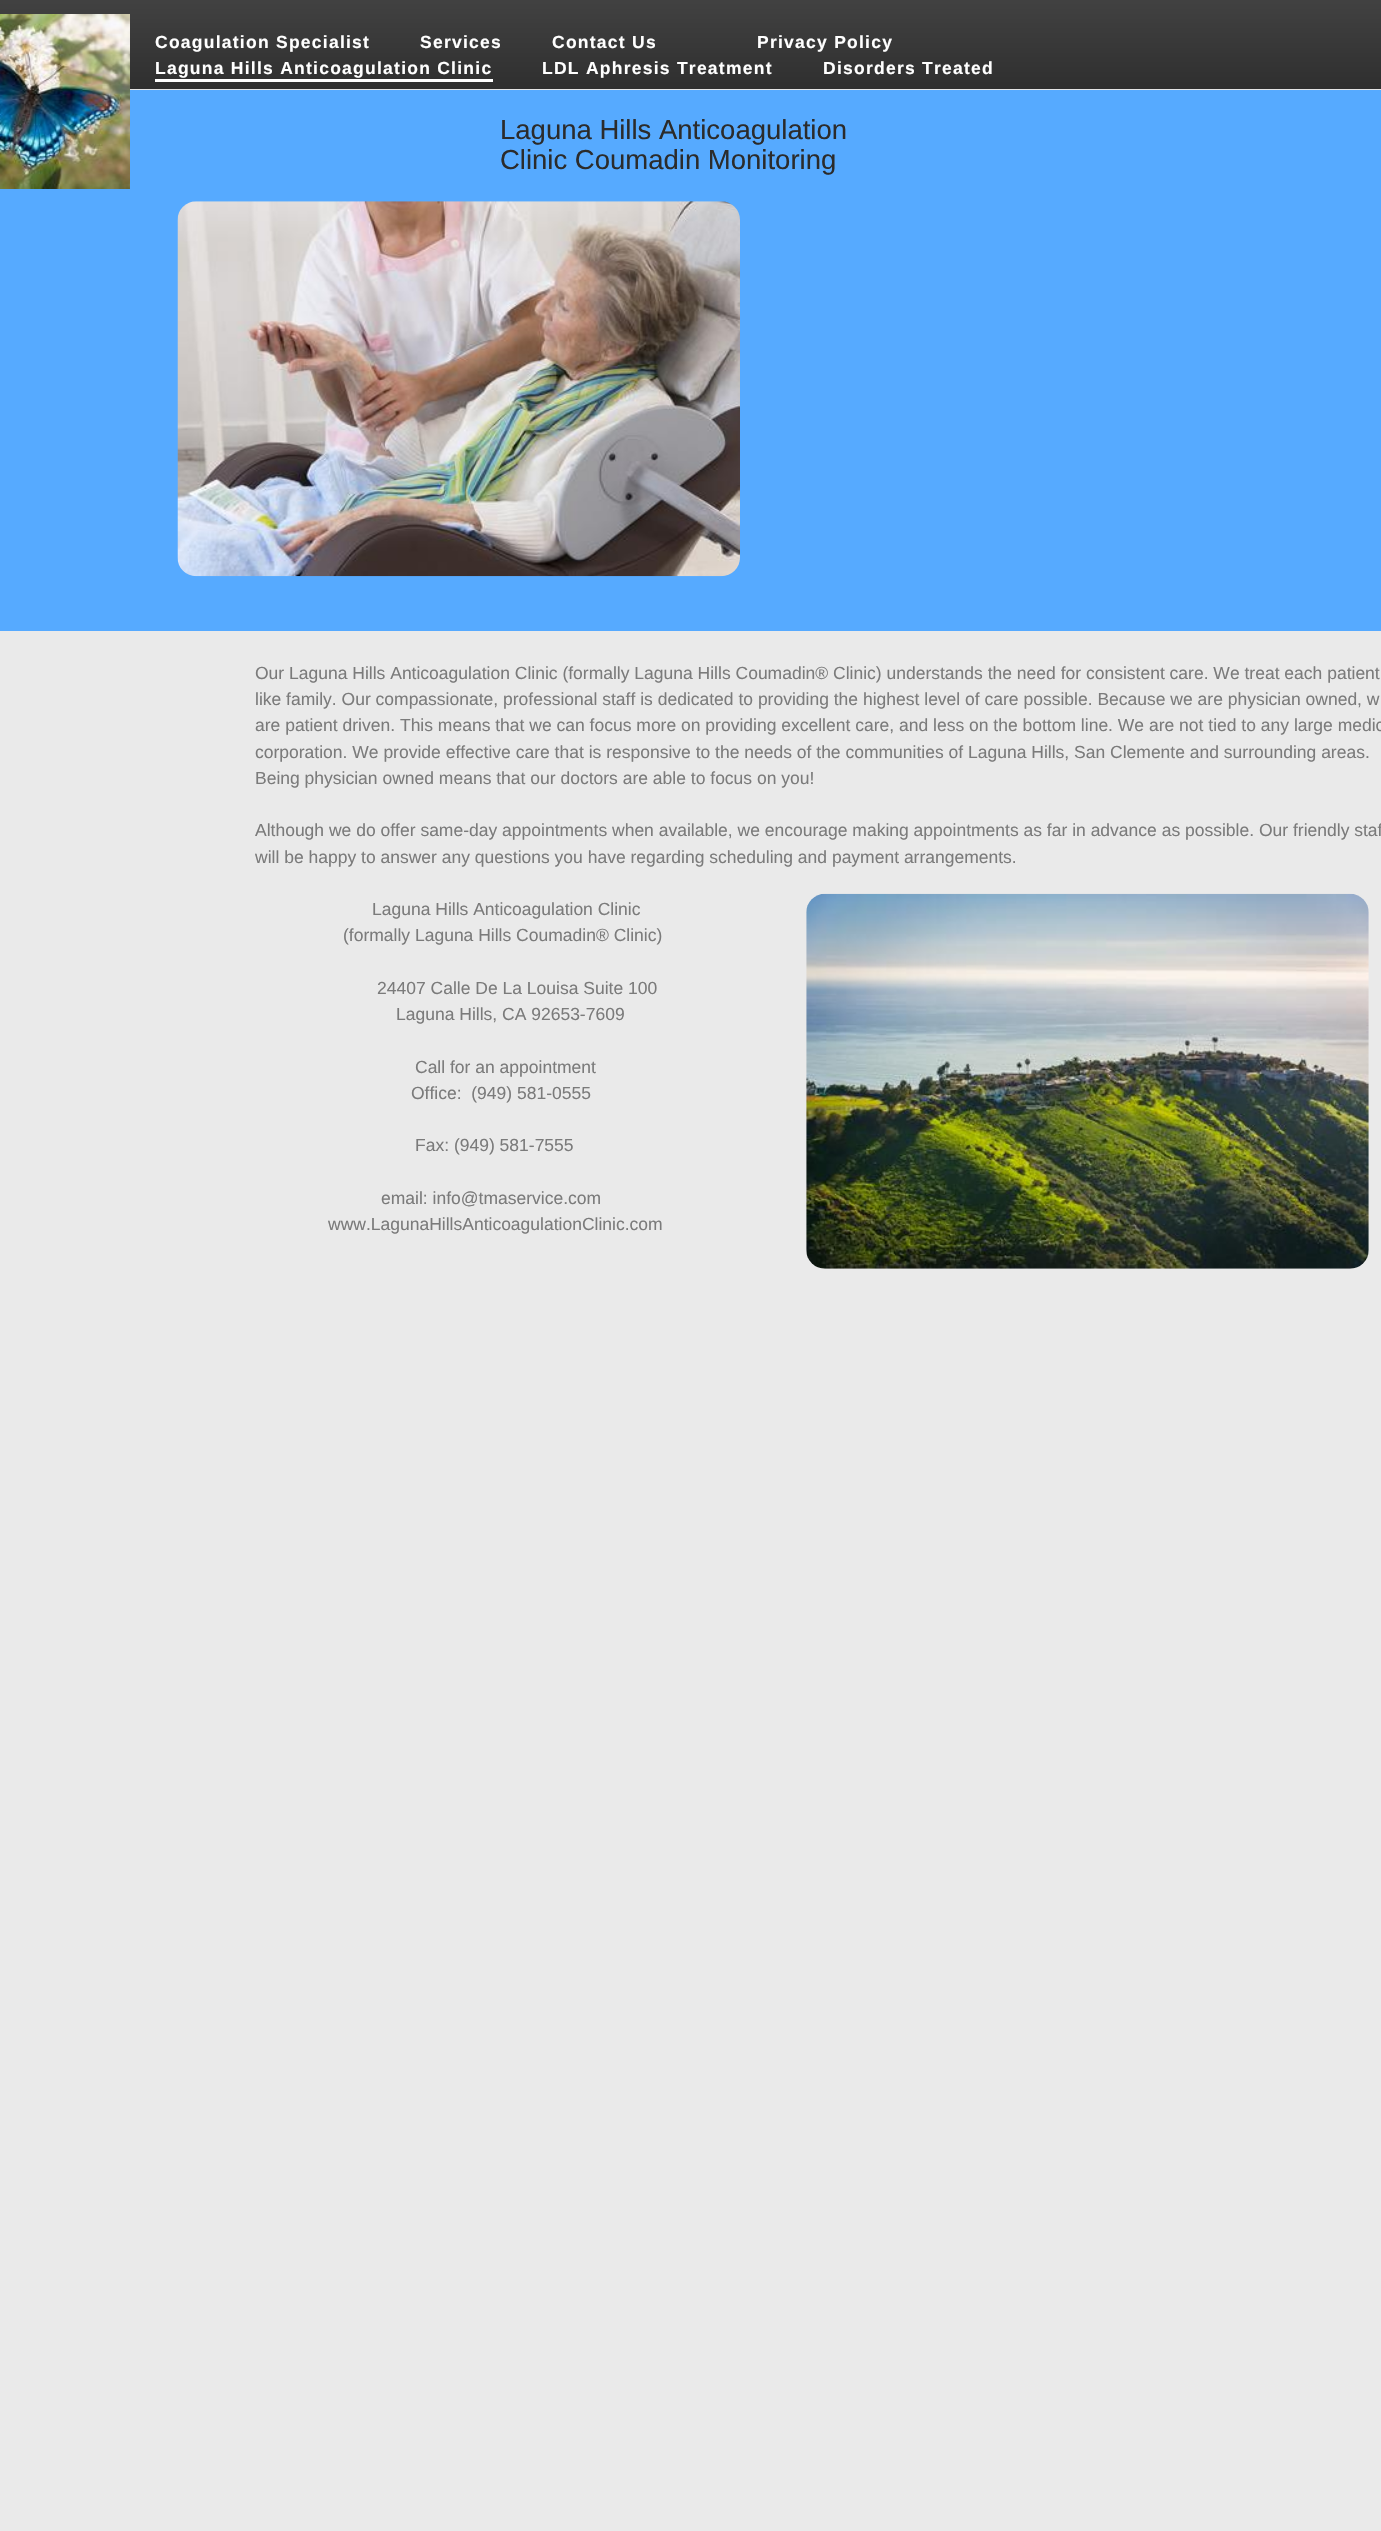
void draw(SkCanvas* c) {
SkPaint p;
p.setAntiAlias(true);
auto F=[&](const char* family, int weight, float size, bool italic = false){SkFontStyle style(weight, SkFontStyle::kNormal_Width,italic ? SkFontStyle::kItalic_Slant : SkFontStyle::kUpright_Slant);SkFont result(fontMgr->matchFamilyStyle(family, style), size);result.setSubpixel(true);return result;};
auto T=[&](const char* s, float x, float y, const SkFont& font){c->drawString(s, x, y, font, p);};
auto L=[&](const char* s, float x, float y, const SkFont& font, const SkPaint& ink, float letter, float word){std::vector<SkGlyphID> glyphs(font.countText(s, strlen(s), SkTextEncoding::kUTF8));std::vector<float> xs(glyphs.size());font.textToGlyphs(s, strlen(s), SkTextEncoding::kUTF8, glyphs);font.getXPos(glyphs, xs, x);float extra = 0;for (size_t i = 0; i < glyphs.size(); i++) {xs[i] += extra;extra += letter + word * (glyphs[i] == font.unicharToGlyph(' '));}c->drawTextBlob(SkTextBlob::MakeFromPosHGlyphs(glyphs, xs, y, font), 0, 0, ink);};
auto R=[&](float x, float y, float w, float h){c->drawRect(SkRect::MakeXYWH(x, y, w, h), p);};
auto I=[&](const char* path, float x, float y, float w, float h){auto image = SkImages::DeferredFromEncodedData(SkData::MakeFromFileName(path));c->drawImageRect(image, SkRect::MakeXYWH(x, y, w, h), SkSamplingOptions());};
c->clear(0xffeaeaea);
{
const SkColor colors[] = {0xff444444,0xff2f2f2f};
const float stops[] = {0,1};
const SkPoint ends[] = {{750,-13}, {750,89}};
p.setShader(SkGradientShader::MakeLinear(ends, colors, stops, 2, SkTileMode::kClamp));
p.setAlpha(255);
}
R(0,0,1381,89);
p.setShader(nullptr);
p.setColor(0xffe4e4e4);
R(130,89,1251,1);
p.setColor(0xff56aaff);
R(0,90,1381,541);
I("1.png",0,14,130,175);
auto f1 = F("Liberation Sans",700,17.5);
p.setColor(0xffffffff);
L("Coagulation Specialist",155,48,f1,p,1.25,0);
L("Services",420,48,f1,p,1.25,0);
L("Contact Us",552,48,f1,p,1.25,0);
L("Privacy Policy",757,48,f1,p,1.25,0);
L("Laguna Hills Anticoagulation Clinic",155,74,f1,p,1.25,0);
R(155,79,338,3);
L("LDL Aphresis Treatment",542,74,f1,p,1.25,0);
L("Disorders Treated",823,74,f1,p,1.25,0);
auto f2 = F("Liberation Sans",400,27.5);
p.setColor(0xff2b2b2b);
T("Laguna Hills Anticoagulation",500,139,f2);
T("Clinic Coumadin Monitoring",500,169,f2);
I("2.png",177,201,563,376);
auto f3 = F("Liberation Sans",400,17.5);
p.setColor(0xff7b7b7b);
T("Our Laguna Hills Anticoagulation Clinic (formally Laguna Hills Coumadin® Clinic) understands the need for consistent care. We treat each patient",255,679,f3);
T("like family. Our compassionate, professional staff is dedicated to providing the highest level of care possible. Because we are physician owned, w",255,705,f3);
T("are patient driven. This means that we can focus more on providing excellent care, and less on the bottom line. We are not tied to any large medic",255,731,f3);
T("corporation. We provide effective care that is responsive to the needs of the communities of Laguna Hills, San Clemente and surrounding areas.",255,758,f3);
T("Being physician owned means that our doctors are able to focus on you!",255,784,f3);
T("Although we do offer same-day appointments when available, we encourage making appointments as far in advance as possible. Our friendly staf",255,836,f3);
T("will be happy to answer any questions you have regarding scheduling and payment arrangements.",255,863,f3);
T("Laguna Hills Anticoagulation Clinic",372,915,f3);
T("(formally Laguna Hills Coumadin® Clinic)",343,941,f3);
T("24407 Calle De La Louisa Suite 100",377,994,f3);
T("Laguna Hills, CA 92653-7609",396,1020,f3);
T("Call for an appointment",415,1073,f3);
T("Office:  (949) 581-0555",411,1099,f3);
T("Fax: (949) 581-7555",415,1151,f3);
T("email: info@tmaservice.com",381,1204,f3);
T("www.LagunaHillsAnticoagulationClinic.com",328,1230,f3);
I("3.png",806,893,563,376);
}
